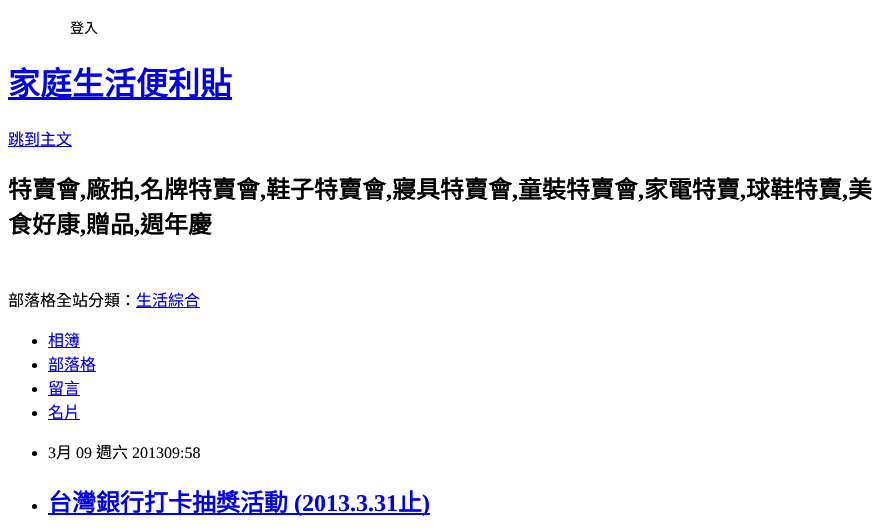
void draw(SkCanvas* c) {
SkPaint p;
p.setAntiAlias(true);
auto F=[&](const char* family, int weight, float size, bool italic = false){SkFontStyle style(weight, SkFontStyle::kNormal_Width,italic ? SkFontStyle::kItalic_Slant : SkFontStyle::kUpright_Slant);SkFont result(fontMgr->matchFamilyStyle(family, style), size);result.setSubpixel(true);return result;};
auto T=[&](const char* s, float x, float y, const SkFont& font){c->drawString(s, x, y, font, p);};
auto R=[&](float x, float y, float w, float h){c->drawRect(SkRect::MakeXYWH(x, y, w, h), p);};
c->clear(0xffffffff);
auto f1 = F("Noto Sans CJK TC",400,14);
p.setColor(0xff000000);
T("登入",70,33,f1);
p.setColor(0xff0000ee);
R(8,97,224,3);
auto f2 = F("Noto Sans CJK TC",700,32);
T("家庭生活便利貼",8,95,f2);
R(8,146,64,1);
auto f3 = F("Noto Sans CJK TC",400,16);
T("跳到主文",8,145,f3);
auto f4 = F("Noto Sans CJK TC",700,24);
p.setColor(0xff000000);
T("特賣會",8,198,f4);
auto f5 = F("Liberation Serif",700,24);
T(",",80,198,f5);
T("廠拍",86,198,f4);
T(",",134,198,f5);
T("名牌特賣會",140,198,f4);
T(",",260,198,f5);
T("鞋子特賣會",266,198,f4);
T(",",386,198,f5);
T("寢具特賣會",392,198,f4);
T(",",512,198,f5);
T("童裝特賣會",518,198,f4);
T(",",638,198,f5);
T("家電特賣",644,198,f4);
T(",",740,198,f5);
T("球鞋特賣",746,198,f4);
T(",",842,198,f5);
T("美",848,198,f4);
T("食好康",8,233,f4);
T(",",80,233,f5);
T("贈品",86,233,f4);
T(",",134,233,f5);
T("週年慶",140,233,f4);
T("部落格全站分類：",8,306,f3);
p.setColor(0xff0000ee);
R(136,307,64,1);
T("生活綜合",136,306,f3);
p.setColor(0xff000000);
c->drawCircle(34.5,341.5,2.5,p);
p.setColor(0xff0000ee);
R(48,347,32,1);
T("相簿",48,346,f3);
p.setColor(0xff000000);
c->drawCircle(34.5,365.5,2.5,p);
p.setColor(0xff0000ee);
R(48,371,48,1);
T("部落格",48,370,f3);
p.setColor(0xff000000);
c->drawCircle(34.5,389.5,2.5,p);
p.setColor(0xff0000ee);
R(48,395,32,1);
T("留言",48,394,f3);
p.setColor(0xff000000);
c->drawCircle(34.5,413.5,2.5,p);
p.setColor(0xff0000ee);
R(48,419,32,1);
T("名片",48,418,f3);
p.setColor(0xff000000);
c->drawCircle(34.5,453.5,2.5,p);
auto f6 = F("Liberation Serif",400,16);
T("3",48,458,f6);
T("月",56,458,f3);
T("09",76,458,f6);
T("週六",96,458,f3);
T("201309:58",132,458,f6);
c->drawCircle(34.5,506.5,2.5,p);
p.setColor(0xff0000ee);
T("台灣銀行打卡抽獎活動",48,511,f4);
R(48,513,382,2);
T("(2013.3.31",294,511,f5);
T("止",398,511,f4);
T(")",422,511,f5);
}
